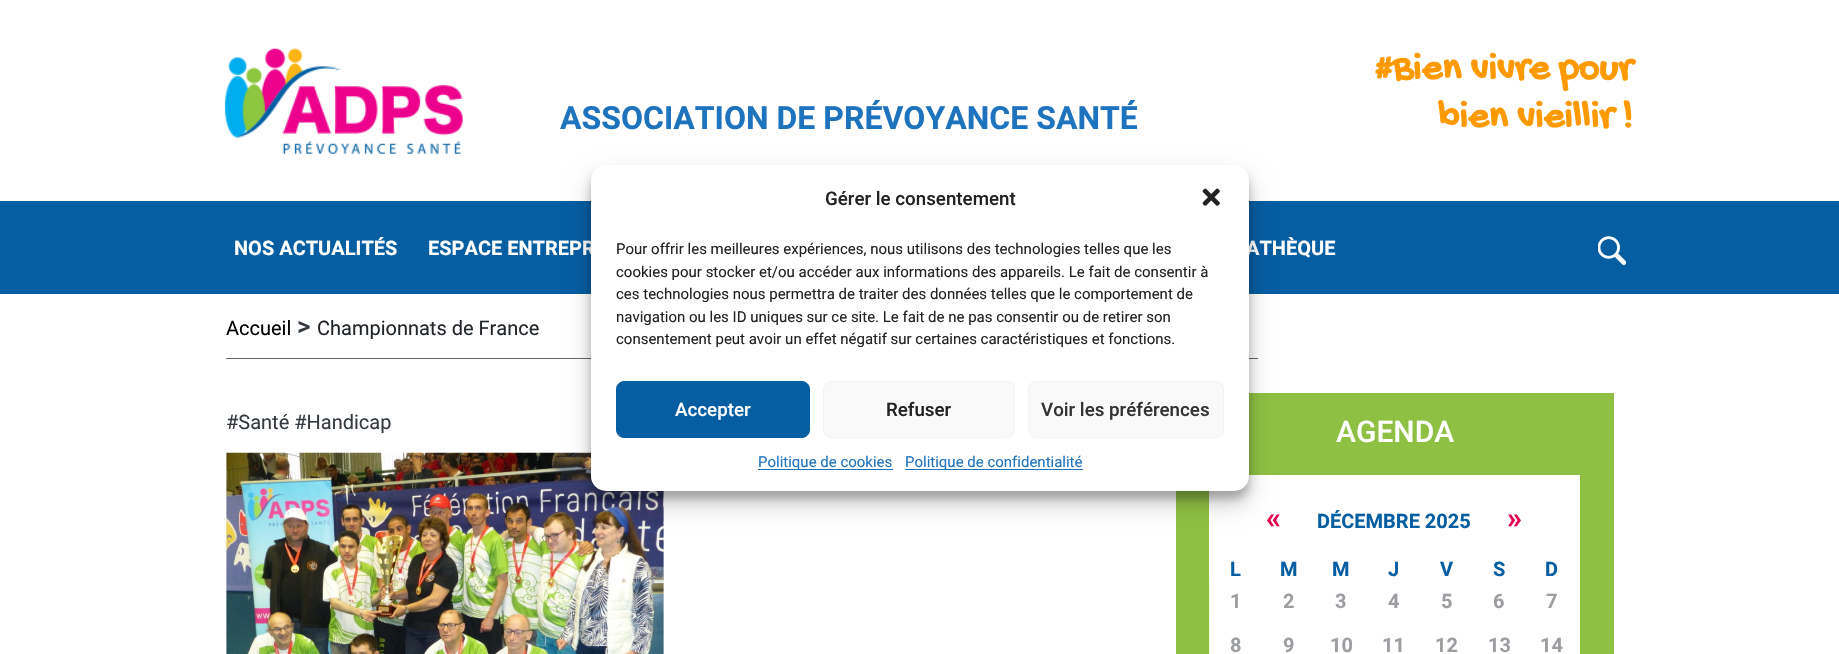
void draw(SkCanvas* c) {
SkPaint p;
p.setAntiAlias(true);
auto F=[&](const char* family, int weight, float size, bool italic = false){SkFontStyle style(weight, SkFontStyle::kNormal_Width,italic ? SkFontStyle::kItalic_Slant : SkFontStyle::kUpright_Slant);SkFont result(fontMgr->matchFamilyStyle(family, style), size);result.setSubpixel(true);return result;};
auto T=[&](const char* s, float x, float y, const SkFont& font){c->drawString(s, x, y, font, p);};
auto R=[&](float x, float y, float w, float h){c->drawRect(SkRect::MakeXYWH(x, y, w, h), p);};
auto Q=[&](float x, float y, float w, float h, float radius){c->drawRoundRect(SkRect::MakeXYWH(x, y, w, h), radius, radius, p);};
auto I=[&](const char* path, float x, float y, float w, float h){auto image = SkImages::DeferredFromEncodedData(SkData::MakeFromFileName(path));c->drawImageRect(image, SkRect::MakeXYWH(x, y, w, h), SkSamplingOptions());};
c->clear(0xffffffff);
I("1.png",224,48,239,106);
auto f1 = F("Roboto",700,32);
p.setColor(0xff1e73be);
T("ASSOCIATION DE PRÉVOYANCE SANTÉ",560,129,f1);
auto f2 = F("Gochi Hand",700,40);
p.setColor(0xffff9900);
T("#Bien vivre pour",1374,78,f2);
T("bien vieillir !",1438,126,f2);
p.setColor(0xff055da2);
R(0,201,1839,93);
auto f3 = F("Roboto",700,20);
p.setColor(0xffffffff);
T("NOS ACTUALITÉS",234,255,f3);
T("ESPACE ENTREPR",428,255,f3);
T("ATHÈQUE",1246,255,f3);
I("2.png",1598,236,28,29);
p.setColor(0xff666666);
R(226,358,1032,1);
auto f4 = F("Roboto",400,20);
p.setColor(0xff000000);
T("Accueil",226,335,f4);
auto f5 = F("Roboto",500,26);
p.setColor(0xff343a40);
T(">",297,335,f5);
p.setColor(0xff212529);
T("Championnats de France",317,335,f4);
{
const SkColor colors[] = {0xffeeeeee,0xfff6f7f8,0xffeeeeee};
const float stops[] = {.08,.18,.33};
const SkPoint ends[] = {{374,631}, {811,631}};
p.setShader(SkGradientShader::MakeLinear(ends, colors, stops, 3, SkTileMode::kClamp));
p.setAlpha(255);
}
R(663,491,1,163);
{
const SkColor colors[] = {0xffeeeeee,0xfff6f7f8,0xffeeeeee};
const float stops[] = {.08,.18,.33};
const SkPoint ends[] = {{-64,631}, {374,631}};
p.setShader(SkGradientShader::MakeLinear(ends, colors, stops, 3, SkTileMode::kClamp));
p.setAlpha(255);
}
R(226,453,1,201);
I("4.png",226,452,438,202);
p.setShader(nullptr);
p.setColor(0xff8ec043);
R(1176,393,438,261);
p.setColor(0xffffffff);
R(1210,476,53,102);
R(1249,475,14,1);
R(1209,578,54,1);
R(1209,491,1,88);
p.setColor(0x3b000000);
p.setMaskFilter(SkMaskFilter::MakeBlur(kNormal_SkBlurStyle, 4));
c->drawRoundRect(SkRect::MakeXYWH(591,173,658,326),15,15,p);
p.setMaskFilter(nullptr);
p.setColor(0xffffffff);
R(1263,475,317,179);
p.setColor(0x30000000);
p.setMaskFilter(SkMaskFilter::MakeBlur(kNormal_SkBlurStyle, 12.5));
c->drawRoundRect(SkRect::MakeXYWH(591,178,658,326),15,15,p);
p.setMaskFilter(nullptr);
p.setColor(0xffffffff);
Q(591,165,658,326,15);
auto f6 = F("Roboto",500,18.75);
p.setColor(0xff222222);
T("Gérer le consentement",825,205,f6);
I("3.png",1202,188,18,18);
auto f7 = F("Roboto",400,15);
T("Pour offrir les meilleures expériences, nous utilisons des technologies telles que les",616,254,f7);
T("cookies pour stocker et/ou accéder aux informations des appareils. Le fait de consentir à",616,277,f7);
T("ces technologies nous permettra de traiter des données telles que le comportement de",616,299,f7);
T("navigation ou les ID uniques sur ce site. Le fait de ne pas consentir ou de retirer son",616,322,f7);
T("consentement peut avoir un effet négatif sur certaines caractéristiques et fonctions.",616,344,f7);
p.setColor(0xff055da2);
c->drawRoundRect(SkRect::MakeXYWH(616.5,381.5,193,56),7.5,7.5,p);
p.setStroke(true);
p.setStrokeWidth(1);
c->drawRoundRect(SkRect::MakeXYWH(616.5,381.5,193,56),7.5,7.5,p);
p.setStroke(false);
p.setColor(0xffffffff);
T("Accepter",675,416,f6);
p.setColor(0xfff9f9f9);
c->drawRoundRect(SkRect::MakeXYWH(823.5,381.5,191,56),7.5,7.5,p);
p.setStroke(true);
p.setColor(0xfff2f2f2);
c->drawRoundRect(SkRect::MakeXYWH(823.5,381.5,191,56),7.5,7.5,p);
p.setStroke(false);
p.setColor(0xff222222);
T("Refuser",886,416,f6);
p.setColor(0xfff9f9f9);
c->drawRoundRect(SkRect::MakeXYWH(1028.5,381.5,195,56),7.5,7.5,p);
p.setStroke(true);
p.setColor(0xfff2f2f2);
c->drawRoundRect(SkRect::MakeXYWH(1028.5,381.5,195,56),7.5,7.5,p);
p.setStroke(false);
p.setColor(0xff333333);
T("Voir les préférences",1041,416,f6);
p.setColor(0xff1e73be);
R(758,469,135,1);
T("Politique de cookies",758,467,f7);
R(905,469,178,1);
T("Politique de confidentialité",905,467,f7);
p.setColor(0xff343a40);
T("#Santé #Handicap",226,429,f4);
p.setColor(0xfff5f9ee);
R(1209,579,1,75);
auto f8 = F("Roboto",500,30);
p.setColor(0xffffffff);
T("AGENDA",1336,442,f8);
R(1210,579,53,75);
auto f9 = F("Roboto",700,30);
p.setColor(0xffe40050);
T("«",1266,528,f9);
p.setColor(0xff055da2);
T("DÉCEMBRE 2025",1317,528,f3);
p.setColor(0xffe40050);
T("»",1507,528,f9);
p.setColor(0xff055da2);
T("L",1230,576,f3);
T("M",1280,576,f3);
T("M",1332,576,f3);
T("J",1388,576,f3);
T("V",1440,576,f3);
T("S",1493,576,f3);
T("D",1545,576,f3);
p.setColor(0xff9c9ea1);
T("1",1230,608,f3);
T("2",1283,608,f3);
T("3",1335,608,f3);
T("4",1388,608,f3);
T("5",1441,608,f3);
T("6",1493,608,f3);
T("7",1546,608,f3);
p.setColor(0xfffcfdfa);
R(1209,621,1,2);
p.setColor(0xfffefefe);
R(1209,621,1,1);
p.setColor(0xff9c9ea1);
T("8",1230,652,f3);
T("9",1283,652,f3);
T("10",1330,652,f3);
T("11",1382,652,f3);
T("12",1435,652,f3);
T("13",1488,652,f3);
T("14",1540,652,f3);
}
